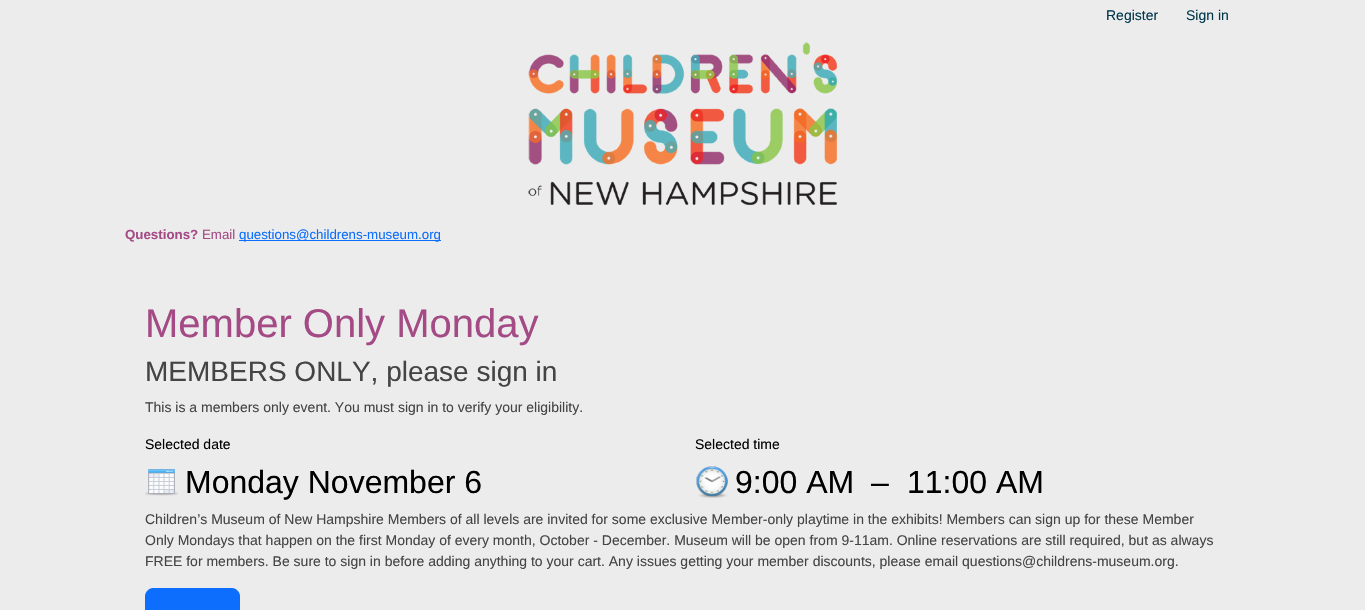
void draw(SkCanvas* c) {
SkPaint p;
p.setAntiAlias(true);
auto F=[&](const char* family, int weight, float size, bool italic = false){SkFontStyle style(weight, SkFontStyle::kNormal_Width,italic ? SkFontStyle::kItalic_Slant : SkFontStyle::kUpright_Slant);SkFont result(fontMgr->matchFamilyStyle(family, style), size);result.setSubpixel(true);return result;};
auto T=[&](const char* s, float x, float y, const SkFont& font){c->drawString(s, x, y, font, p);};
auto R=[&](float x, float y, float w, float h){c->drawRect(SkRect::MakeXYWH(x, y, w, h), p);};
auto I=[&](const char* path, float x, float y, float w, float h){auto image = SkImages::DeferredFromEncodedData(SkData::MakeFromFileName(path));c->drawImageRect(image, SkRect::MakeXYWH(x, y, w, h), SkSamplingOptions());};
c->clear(0xffececec);
auto f1 = F("Liberation Sans",400,14);
p.setColor(0xff01384c);
T("Register",1106,20,f1);
T("Sign in",1186,20,f1);
I("1.png",528,42,309,163);
auto f2 = F("Liberation Sans",700,13.3);
p.setColor(0xffa44a85);
T("Questions?",125,239,f2);
auto f3 = F("Liberation Sans",400,13.3);
T("Email",202,239,f3);
p.setColor(0xff0d6efd);
R(239,240,202,1);
T("questions@childrens-museum.org",239,239,f3);
auto f4 = F("Liberation Sans",400,40);
p.setColor(0xffa44a85);
T("Member Only Monday",145,337,f4);
auto f5 = F("Liberation Sans",400,28);
p.setColor(0xff444444);
T("MEMBERS ONLY, please sign in",145,381,f5);
T("This is a members only event. You must sign in to verify your eligibility.",145,412,f1);
p.setColor(0xff000000);
T("Selected date",145,449,f1);
I("2.png",145,469,33,27);
auto f6 = F("Liberation Sans",400,32);
T("Monday November 6",185,493,f6);
T("Selected time",695,449,f1);
I("3.png",696,466,32,32);
T("9:00 AM",735,493,f6);
T("–",871,493,f6);
T("11:00 AM",907,493,f6);
p.setColor(0xff444444);
T("Children’s Museum of New Hampshire Members of all levels are invited for some exclusive Member-only playtime in the exhibits! Members can sign up for these Member",145,524,f1);
T("Only Mondays that happen on the first Monday of every month, October - December. Museum will be open from 9-11am. Online reservations are still required, but as always",145,545,f1);
T("FREE for members. Be sure to sign in before adding anything to your cart. Any issues getting your member discounts, please email questions@childrens-museum.org.",145,566,f1);
p.setColor(0xff0d6efd);
c->drawRoundRect(SkRect::MakeXYWH(145.5,588.5,94,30),7.5,7.5,p);
p.setStroke(true);
p.setStrokeWidth(1);
c->drawRoundRect(SkRect::MakeXYWH(145.5,588.5,94,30),7.5,7.5,p);
}
